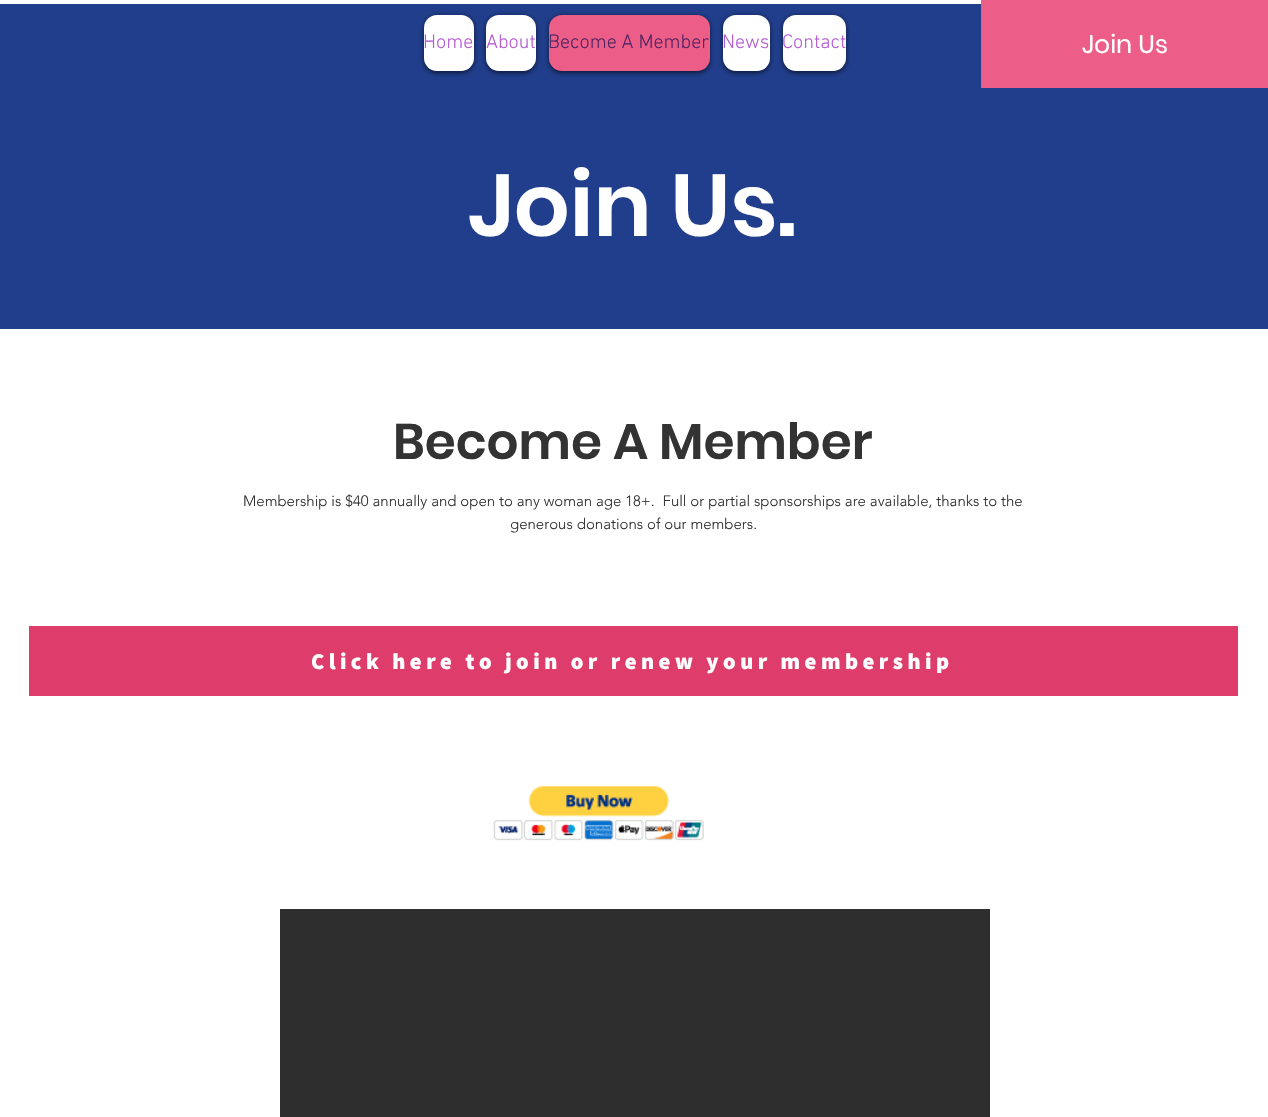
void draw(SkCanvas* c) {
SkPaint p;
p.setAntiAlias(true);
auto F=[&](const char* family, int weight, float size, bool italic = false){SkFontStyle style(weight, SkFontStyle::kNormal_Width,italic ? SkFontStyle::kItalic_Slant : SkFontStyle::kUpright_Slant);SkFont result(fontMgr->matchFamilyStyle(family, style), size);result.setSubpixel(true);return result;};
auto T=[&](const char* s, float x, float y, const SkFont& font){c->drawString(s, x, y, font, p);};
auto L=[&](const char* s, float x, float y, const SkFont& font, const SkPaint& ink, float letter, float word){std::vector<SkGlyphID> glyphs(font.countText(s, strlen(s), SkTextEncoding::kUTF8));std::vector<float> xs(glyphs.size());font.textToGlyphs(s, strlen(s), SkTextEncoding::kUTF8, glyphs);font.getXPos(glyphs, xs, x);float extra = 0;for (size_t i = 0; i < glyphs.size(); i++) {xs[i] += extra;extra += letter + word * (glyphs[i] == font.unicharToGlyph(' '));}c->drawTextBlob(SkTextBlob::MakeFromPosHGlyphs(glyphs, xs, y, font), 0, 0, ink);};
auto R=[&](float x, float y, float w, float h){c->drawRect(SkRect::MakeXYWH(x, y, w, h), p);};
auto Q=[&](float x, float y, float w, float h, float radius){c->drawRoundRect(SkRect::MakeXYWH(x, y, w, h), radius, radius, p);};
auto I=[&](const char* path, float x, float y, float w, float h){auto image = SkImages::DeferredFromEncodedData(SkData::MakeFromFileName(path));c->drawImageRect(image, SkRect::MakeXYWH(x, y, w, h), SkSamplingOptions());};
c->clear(0xffffffff);
p.setColor(0xff213e8c);
R(0,4,1268,325);
p.setColor(0x99000000);
p.setMaskFilter(SkMaskFilter::MakeBlur(kNormal_SkBlurStyle, 2.5));
c->drawRoundRect(SkRect::MakeXYWH(424,16,50,57),13,13,p);
p.setMaskFilter(nullptr);
p.setColor(0xffffffff);
Q(424,15,50,56,13);
auto f1 = F("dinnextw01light",300,20);
p.setColor(0xffb45ad3);
T("Home",423,48,f1);
p.setColor(0x99000000);
p.setMaskFilter(SkMaskFilter::MakeBlur(kNormal_SkBlurStyle, 2.5));
c->drawRoundRect(SkRect::MakeXYWH(486,16,50,57),13,13,p);
p.setMaskFilter(nullptr);
p.setColor(0xffffffff);
Q(486,15,50,56,13);
p.setColor(0xffb45ad3);
T("About",486,48,f1);
p.setColor(0x99000000);
p.setMaskFilter(SkMaskFilter::MakeBlur(kNormal_SkBlurStyle, 2.5));
c->drawRoundRect(SkRect::MakeXYWH(549,16,161,57),13,13,p);
p.setMaskFilter(nullptr);
p.setColor(0xffec5e87);
Q(549,15,161,56,13);
p.setColor(0xff532563);
T("Become A Member",548,48,f1);
p.setColor(0x99000000);
p.setMaskFilter(SkMaskFilter::MakeBlur(kNormal_SkBlurStyle, 2.5));
c->drawRoundRect(SkRect::MakeXYWH(723,16,47,57),13,13,p);
p.setMaskFilter(nullptr);
p.setColor(0xffffffff);
Q(723,15,47,56,13);
p.setColor(0xffb45ad3);
T("News",722,48,f1);
p.setColor(0x99000000);
p.setMaskFilter(SkMaskFilter::MakeBlur(kNormal_SkBlurStyle, 2.5));
c->drawRoundRect(SkRect::MakeXYWH(783,16,63,57),13,13,p);
p.setMaskFilter(nullptr);
p.setColor(0xffffffff);
Q(783,15,63,56,13);
p.setColor(0xffb45ad3);
T("Contact",782,48,f1);
p.setColor(0xffec5e87);
R(981,0,287,88);
auto f2 = F("Poppins",400,25);
p.setColor(0xffffffff);
T("Join Us",1082,53,f2);
auto f3 = F("Poppins",600,87.5);
T("Join Us.",468,236,f3);
auto f4 = F("Poppins",600,50);
p.setColor(0xff333333);
T("Become A Member",393,459,f4);
auto f5 = F("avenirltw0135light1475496",300,15);
T("Membership is $40 annually and open to any woman age 18+.  Full or partial sponsorships are available, thanks to the",243,506,f5);
T("generous donations of our members.",510,529,f5);
p.setColor(0xffde3c6b);
R(29,626,1209,70);
auto f6 = F("Assistant",800,22.5);
p.setColor(0xffffffff);
L("Click here to join or renew your membership",311,669,f6,p,4.5,0);
I("1.png",493,786,211,55);
p.setColor(0xff2f2e2e);
R(280,909,710,208);
}
